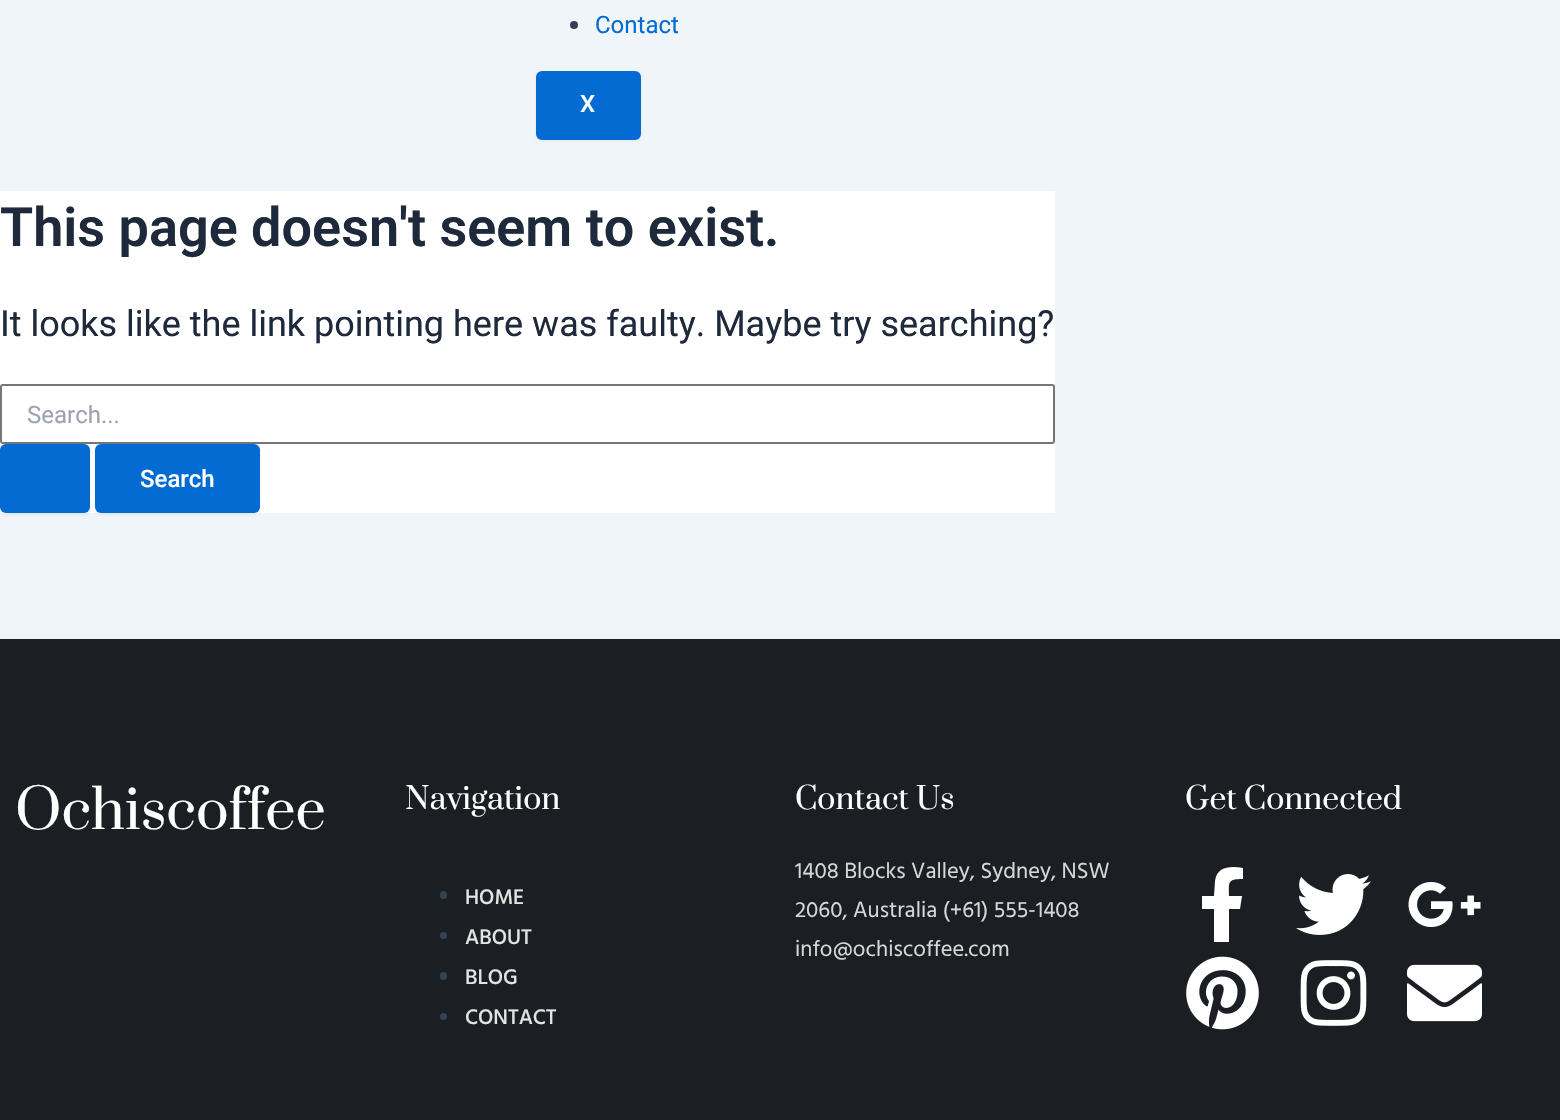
void draw(SkCanvas* c) {
SkPaint p;
p.setAntiAlias(true);
auto F=[&](const char* family, int weight, float size, bool italic = false){SkFontStyle style(weight, SkFontStyle::kNormal_Width,italic ? SkFontStyle::kItalic_Slant : SkFontStyle::kUpright_Slant);SkFont result(fontMgr->matchFamilyStyle(family, style), size);result.setSubpixel(true);return result;};
auto T=[&](const char* s, float x, float y, const SkFont& font){c->drawString(s, x, y, font, p);};
auto R=[&](float x, float y, float w, float h){c->drawRect(SkRect::MakeXYWH(x, y, w, h), p);};
auto Q=[&](float x, float y, float w, float h, float radius){c->drawRoundRect(SkRect::MakeXYWH(x, y, w, h), radius, radius, p);};
auto I=[&](const char* path, float x, float y, float w, float h){auto image = SkImages::DeferredFromEncodedData(SkData::MakeFromFileName(path));c->drawImageRect(image, SkRect::MakeXYWH(x, y, w, h), SkSamplingOptions());};
auto P=[&](const char* data, bool evenOdd = false){SkPath result = *SkParsePath::FromSVGString(data);if (evenOdd) result.setFillType(SkPathFillType::kEvenOdd);return result;};
c->clear(0xfff0f5fa);
p.setColor(0xff334155);
c->drawCircle(574,25,4,p);
auto f1 = F("Roboto",400,24);
p.setColor(0xff046bd2);
T("Contact",595,33,f1);
p.setColor(0x0d000000);
p.setMaskFilter(SkMaskFilter::MakeBlur(kNormal_SkBlurStyle, 1.5));
c->drawRoundRect(SkRect::MakeXYWH(536,72,105,69),6,6,p);
p.setMaskFilter(nullptr);
p.setColor(0xff046bd2);
Q(536,71,105,69,6);
auto f2 = F("Roboto",500,24);
p.setColor(0xffffffff);
T("X",580,112,f2);
R(0,191,1055,322);
auto f3 = F("Roboto",600,54);
p.setColor(0xff1e293b);
T("This page doesn't seem to exist.",0,246,f3);
auto f4 = F("Roboto",400,36);
T("It looks like the link pointing here was faulty. Maybe try searching?",0,336,f4);
p.setStroke(true);
p.setStrokeWidth(2);
p.setColor(0xff767676);
c->drawRoundRect(SkRect::MakeXYWH(1,385,1053,58),2,2,p);
p.setStroke(false);
p.setColor(0xff9ca3af);
T("Search...",27,423,f1);
p.setColor(0x0d000000);
p.setMaskFilter(SkMaskFilter::MakeBlur(kNormal_SkBlurStyle, 1.5));
c->drawRoundRect(SkRect::MakeXYWH(0,446,90,69),6,6,p);
p.setMaskFilter(nullptr);
p.setColor(0xff046bd2);
Q(0,444,90,69,6);
p.setColor(0x0d000000);
p.setMaskFilter(SkMaskFilter::MakeBlur(kNormal_SkBlurStyle, 1.5));
c->drawRoundRect(SkRect::MakeXYWH(95,446,165,69),6,6,p);
p.setMaskFilter(nullptr);
p.setColor(0xff046bd2);
Q(95,444,165,69,6);
p.setColor(0xffffffff);
T("Search",140,487,f2);
p.setColor(0xff1b1f23);
R(0,639,1560,481);
auto f5 = F("Prata",400,54);
p.setColor(0xffffffff);
T("Ochiscoffee",15,829,f5);
auto f6 = F("Prata",400,30);
T("Navigation",405,809,f6);
p.setColor(0xff334155);
Q(440,891,7,8,3.5);
auto f7 = F("Hind",500,21.5);
p.setColor(0xffe4e4e5);
T("HOME",465,904,f7);
p.setColor(0xff334155);
c->drawCircle(443.5,935.5,3.5,p);
p.setColor(0xffe4e4e5);
T("ABOUT",465,944,f7);
p.setColor(0xff334155);
Q(440,972,7,8,3.5);
p.setColor(0xffe4e4e5);
T("BLOG",465,984,f7);
p.setColor(0xff334155);
c->drawCircle(443.5,1016.5,3.5,p);
p.setColor(0xffe4e4e5);
T("CONTACT",465,1024,f7);
p.setColor(0xffffffff);
T("Contact Us",795,809,f6);
auto f8 = F("Hind",400,22.5);
p.setColor(0xffd6d7d7);
T("1408 Blocks Valley, Sydney, NSW",795,878,f8);
T("2060, Australia (+61) 555-1408",795,917,f8);
T("info@ochiscoffee.com",795,956,f8);
p.setColor(0xffffffff);
T("Get Connected",1185,809,f6);
c->drawPath(P("M1240 909l2-13h-13c0-14-2-17 14-17v-11c-12-2-26-2-28 13l-1 15h-12v13h12v33h15v-33z"),p);
I("1.png",1296,874,75,61);
I("2.png",1408,882,73,45);
I("3.png",1186,956,73,74);
I("4.png",1300,960,67,66);
I("5.png",1407,964,75,58);
}
